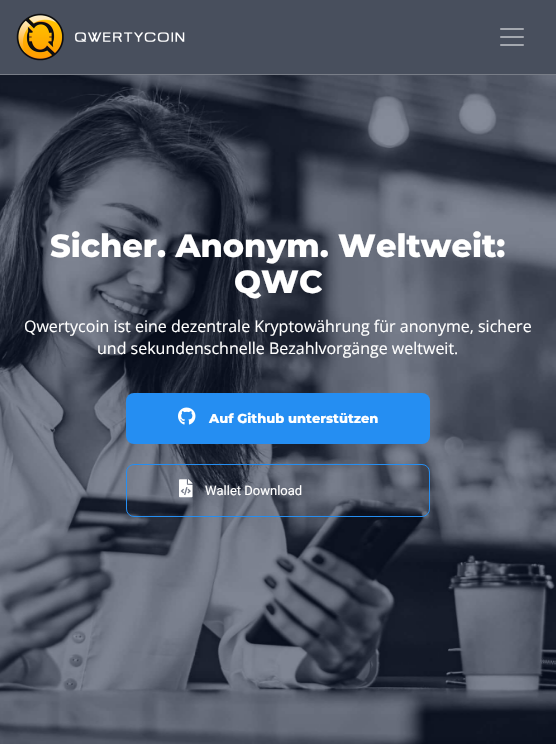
void draw(SkCanvas* c) {
SkPaint p;
p.setAntiAlias(true);
auto F=[&](const char* family, int weight, float size, bool italic = false){SkFontStyle style(weight, SkFontStyle::kNormal_Width,italic ? SkFontStyle::kItalic_Slant : SkFontStyle::kUpright_Slant);SkFont result(fontMgr->matchFamilyStyle(family, style), size);result.setSubpixel(true);return result;};
auto T=[&](const char* s, float x, float y, const SkFont& font){c->drawString(s, x, y, font, p);};
auto R=[&](float x, float y, float w, float h){c->drawRect(SkRect::MakeXYWH(x, y, w, h), p);};
auto Q=[&](float x, float y, float w, float h, float radius){c->drawRoundRect(SkRect::MakeXYWH(x, y, w, h), radius, radius, p);};
auto I=[&](const char* path, float x, float y, float w, float h){auto image = SkImages::DeferredFromEncodedData(SkData::MakeFromFileName(path));c->drawImageRect(image, SkRect::MakeXYWH(x, y, w, h), SkSamplingOptions());};
c->clear(0xffffffff);
p.setColor(0xff484f5d);
R(0,0,556,74);
p.setColor(0xff787d87);
R(0,74,556,1);
I("1.png",16,13,169,48);
I("2.png",500,28,24,18);
I("3.png",0,75,556,669);
auto f1 = F("Montserrat",800,32);
p.setColor(0xffffffff);
T("Sicher. Anonym. Weltweit:",50,257,f1);
T("QWC",234,293,f1);
auto f2 = F("Open Sans",400,16);
T("Qwertycoin ist eine dezentrale Kryptowährung für anonyme, sichere",24,332,f2);
T("und sekundenschnelle Bezahlvorgänge weltweit.",97,354,f2);
p.setColor(0xff258ef2);
Q(126,393,304,51,8);
I("4.png",178,407,18,18);
auto f3 = F("Montserrat",800,13);
p.setColor(0xffffffff);
T("Auf Github unterstützen",209,423,f3);
p.setStroke(true);
p.setStrokeWidth(1);
p.setColor(0xff258ef2);
c->drawRoundRect(SkRect::MakeXYWH(126.5,464.5,303,52),7.5,7.5,p);
I("5.png",179,479,14,19);
auto f4 = F("Roboto",400,13);
p.setStroke(false);
p.setColor(0xffffffff);
T("Wallet Download",205,495,f4);
}
